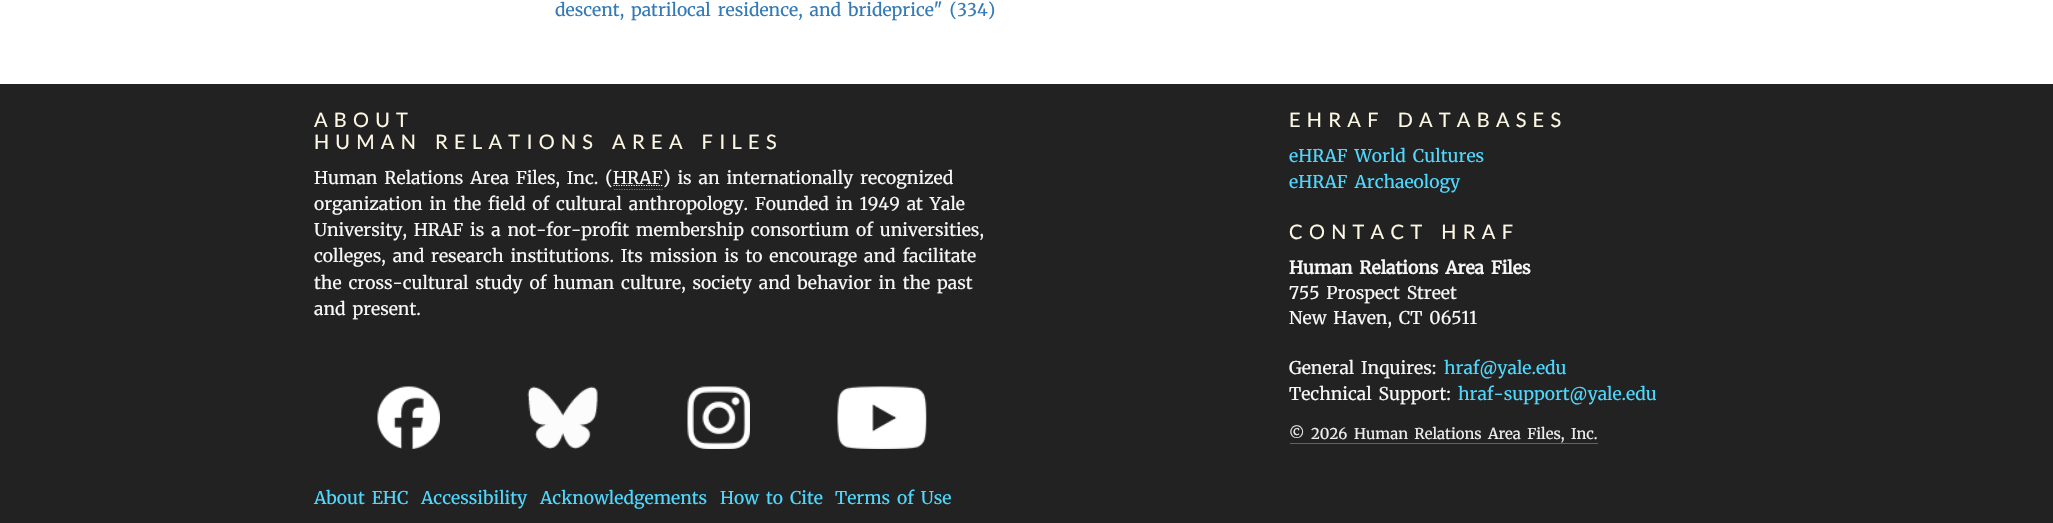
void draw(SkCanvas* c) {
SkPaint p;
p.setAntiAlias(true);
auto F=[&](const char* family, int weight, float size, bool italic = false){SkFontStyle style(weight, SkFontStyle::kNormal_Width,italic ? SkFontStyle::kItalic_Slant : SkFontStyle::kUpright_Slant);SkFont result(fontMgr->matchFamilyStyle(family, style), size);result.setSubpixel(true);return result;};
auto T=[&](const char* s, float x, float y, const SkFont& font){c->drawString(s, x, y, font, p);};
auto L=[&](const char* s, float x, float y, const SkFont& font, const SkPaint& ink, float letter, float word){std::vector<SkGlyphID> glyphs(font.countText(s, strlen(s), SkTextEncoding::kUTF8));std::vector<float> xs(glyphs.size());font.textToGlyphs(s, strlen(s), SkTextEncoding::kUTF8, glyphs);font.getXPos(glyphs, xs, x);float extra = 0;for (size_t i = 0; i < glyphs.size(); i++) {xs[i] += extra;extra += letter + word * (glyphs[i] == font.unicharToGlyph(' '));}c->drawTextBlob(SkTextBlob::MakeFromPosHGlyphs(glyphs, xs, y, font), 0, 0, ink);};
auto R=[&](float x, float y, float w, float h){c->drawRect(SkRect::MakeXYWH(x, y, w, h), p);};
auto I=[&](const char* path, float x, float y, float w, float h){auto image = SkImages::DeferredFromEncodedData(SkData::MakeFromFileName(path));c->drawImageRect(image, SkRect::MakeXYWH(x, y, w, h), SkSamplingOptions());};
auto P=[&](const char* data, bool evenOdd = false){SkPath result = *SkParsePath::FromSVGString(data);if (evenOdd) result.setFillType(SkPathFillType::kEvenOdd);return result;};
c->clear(0xff222222);
p.setColor(0xffffffff);
R(0,0,2053,84);
auto f1 = F("Merriweather",300,17.5);
p.setColor(0xff337ab7);
L("descent, patrilocal residence, and brideprice\" (334)",555,16,f1,p,0,2.75);
auto f2 = F("Lato",400,20);
p.setColor(0xfffcf8e3);
L("ABOUT",314,127,f2,p,6.25,0);
L("HUMAN RELATIONS AREA FILES",314,149,f2,p,6.25,2.75);
p.setColor(0xfff8f8f8);
L("Human Relations Area Files, Inc. (",314,184,f1,p,0,2.75);
T("HRAF",613,184,f1);
p.setStroke(true);
p.setStrokeWidth(1.2);
p.setColor(0xff777777);
p.setPathEffect(SkDashPathEffect::Make({{1.25f,1.25f}}, 0));
c->drawPath(P("M614 189.5h48.5"),p);
p.setPathEffect(nullptr);
p.setColor(0xfff8f8f8);
p.setPathEffect(SkDashPathEffect::Make({{1.25f,1.25f}}, 0));
c->drawPath(P("M613.5 185.5h49"),p);
p.setPathEffect(nullptr);
p.setStroke(false);
L(") is an internationally recognized",663,184,f1,p,0,2.75);
L("organization in the field of cultural anthropology. Founded in 1949 at Yale",314,210,f1,p,0,2.75);
L("University, HRAF is a not-for-profit membership consortium of universities,",314,236,f1,p,0,2.75);
L("colleges, and research institutions. Its mission is to encourage and facilitate",314,262,f1,p,0,2.75);
L("the cross-cultural study of human culture, society and behavior in the past",314,289,f1,p,0,2.75);
L("and present.",314,315,f1,p,0,2.75);
p.setColor(0xfffcf8e3);
L("EHRAF DATABASES",1289,127,f2,p,6.25,2.75);
p.setColor(0xff4fd8ff);
L("eHRAF World Cultures",1289,162,f1,p,0,2.75);
L("eHRAF Archaeology",1289,188,f1,p,0,2.75);
p.setColor(0xfffcf8e3);
L("CONTACT HRAF",1289,239,f2,p,6.25,2.75);
auto f3 = F("Merriweather",700,17.5);
p.setColor(0xfff8f8f8);
L("Human Relations Area Files",1289,274,f3,p,0,2.75);
L("755 Prospect Street",1289,299,f1,p,0,2.75);
L("New Haven, CT 06511",1289,324,f1,p,0,2.75);
L("General Inquires:",1289,374,f1,p,0,2.75);
p.setColor(0xff4fd8ff);
T("hraf@yale.edu",1444,374,f1);
p.setColor(0xfff8f8f8);
L("Technical Support:",1289,400,f1,p,0,2.75);
p.setColor(0xff4fd8ff);
T("hraf-support@yale.edu",1458,400,f1);
I("1.png",377,386,63,63);
I("2.png",527,386,71,63);
I("3.png",687,386,63,63);
I("4.png",837,386,90,63);
auto f4 = F("Merriweather",300,14.9);
p.setColor(0xffeeeeee);
T("©",1289,439,f4);
T("2026",1311,439,f4);
L("Human Relations Area Files, Inc.",1354,439,f4,p,0,2.75);
p.setColor(0xff636363);
R(1290,443,308,1);
p.setColor(0xff4fd8ff);
L("About EHC",314,504,f1,p,0,2.75);
T("Accessibility",421,504,f1);
T("Acknowledgements",540,504,f1);
L("How to Cite",720,504,f1,p,0,2.75);
L("Terms of Use",835,504,f1,p,0,2.75);
}
